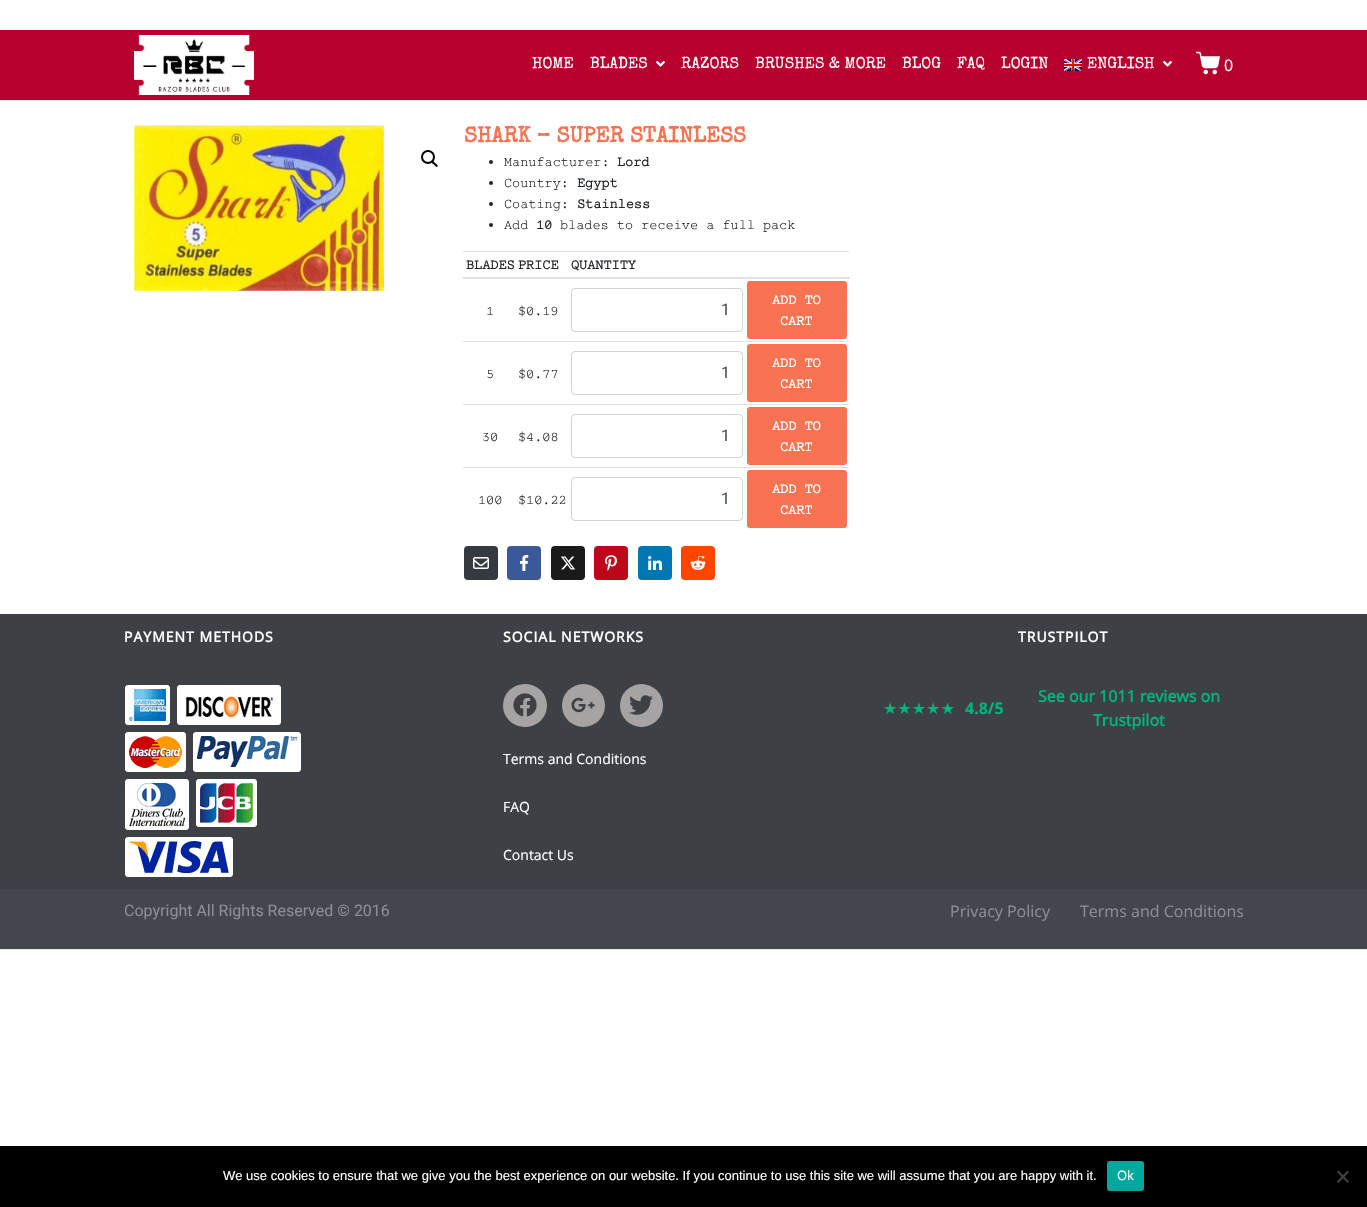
void draw(SkCanvas* c) {
SkPaint p;
p.setAntiAlias(true);
auto F=[&](const char* family, int weight, float size, bool italic = false){SkFontStyle style(weight, SkFontStyle::kNormal_Width,italic ? SkFontStyle::kItalic_Slant : SkFontStyle::kUpright_Slant);SkFont result(fontMgr->matchFamilyStyle(family, style), size);result.setSubpixel(true);return result;};
auto T=[&](const char* s, float x, float y, const SkFont& font){c->drawString(s, x, y, font, p);};
auto L=[&](const char* s, float x, float y, const SkFont& font, const SkPaint& ink, float letter, float word){std::vector<SkGlyphID> glyphs(font.countText(s, strlen(s), SkTextEncoding::kUTF8));std::vector<float> xs(glyphs.size());font.textToGlyphs(s, strlen(s), SkTextEncoding::kUTF8, glyphs);font.getXPos(glyphs, xs, x);float extra = 0;for (size_t i = 0; i < glyphs.size(); i++) {xs[i] += extra;extra += letter + word * (glyphs[i] == font.unicharToGlyph(' '));}c->drawTextBlob(SkTextBlob::MakeFromPosHGlyphs(glyphs, xs, y, font), 0, 0, ink);};
auto R=[&](float x, float y, float w, float h){c->drawRect(SkRect::MakeXYWH(x, y, w, h), p);};
auto Q=[&](float x, float y, float w, float h, float radius){c->drawRoundRect(SkRect::MakeXYWH(x, y, w, h), radius, radius, p);};
auto I=[&](const char* path, float x, float y, float w, float h){auto image = SkImages::DeferredFromEncodedData(SkData::MakeFromFileName(path));c->drawImageRect(image, SkRect::MakeXYWH(x, y, w, h), SkSamplingOptions());};
auto P=[&](const char* data, bool evenOdd = false){SkPath result = *SkParsePath::FromSVGString(data);if (evenOdd) result.setFillType(SkPathFillType::kEvenOdd);return result;};
c->clear(0xffffffff);
p.setColor(0xffebebeb);
R(0,949,1367,1);
p.setColor(0xffb8002f);
R(0,30,1367,70);
p.setColor(0xffe9ecef);
R(0,100,1367,1);
I("1.png",134,35,120,60);
auto f1 = F("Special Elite",400,16);
p.setColor(0xffffffff);
T("HOME",532,68,f1);
T("BLADES",590,68,f1);
I("2.png",656,60,9,7);
T("RAZORS",681,68,f1);
T("BRUSHES & MORE",755,68,f1);
T("BLOG",902,68,f1);
T("FAQ",957,68,f1);
T("LOGIN",1001,68,f1);
I("3.png",1064,59,18,12);
T("ENGLISH",1087,68,f1);
I("2.png",1163,60,9,7);
I("4.png",1196,51,24,24);
auto f2 = F("Open Sans",400,16);
T("0",1224,71,f2);
I("5.png",134,125,250,166);
p.setStroke(true);
p.setStrokeWidth(2);
p.setColor(0xff000000);
c->drawCircle(428,157,6,p);
p.setStroke(false);
c->drawPath(P("M431.5 161c1.5-1 3 1.5 3.5 2c1 .5 3.5 2.5 2.5 3.5c-1.5 1.5-3-1.5-3.5-2c-1-.5-3.5-2.5-2.5-3.5z"),p);
auto f3 = F("Special Elite",700,22);
p.setColor(0xfff97352);
T("SHARK – SUPER STAINLESS",464,142,f3);
p.setColor(0xff212529);
c->drawCircle(491,162,2,p);
auto f4 = F("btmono",400,14);
T("Manufacturer:",504,166,f4);
auto f5 = F("btmono",700,14);
T("Lord",617,166,f5);
c->drawCircle(491,183,2,p);
T("Country:",504,187,f4);
T("Egypt",577,187,f5);
c->drawCircle(491,204,2,p);
T("Coating:",504,208,f4);
T("Stainless",577,208,f5);
c->drawCircle(491,225,2,p);
T("Add",504,229,f4);
T("10",536,229,f5);
T("blades to receive a full pack",560,229,f4);
p.setColor(0xffdee2e6);
R(463,251,386,1);
R(463,277,387,2);
p.setColor(0xff212529);
T("BLADES",466,269,f5);
T("PRICE",518,269,f5);
T("QUANTITY",571,269,f5);
T("1",486,315,f4);
T("$0.19",518,315,f4);
p.setStroke(true);
p.setStrokeWidth(1);
p.setColor(0xffced4da);
c->drawRoundRect(SkRect::MakeXYWH(571.5,288.5,171,43),3.5,3.5,p);
auto f6 = F("Roboto",400,16);
p.setStroke(false);
p.setColor(0xff495057);
T("1",721,315,f6);
p.setColor(0xfff97352);
Q(747,281,100,58,3);
p.setColor(0xffffffff);
T("ADD TO",772,304,f5);
T("CART",780,325,f5);
p.setColor(0xff212529);
T("5",486,378,f4);
T("$0.77",518,378,f4);
p.setStroke(true);
p.setColor(0xffced4da);
c->drawRoundRect(SkRect::MakeXYWH(571.5,351.5,171,43),3.5,3.5,p);
p.setStroke(false);
p.setColor(0xff495057);
T("1",721,378,f6);
p.setColor(0xffdee2e6);
R(463,341,386,1);
p.setColor(0xfff97352);
Q(747,344,100,58,3);
p.setColor(0xffffffff);
T("ADD TO",772,367,f5);
T("CART",780,388,f5);
p.setColor(0xff212529);
T("30",482,441,f4);
T("$4.08",518,441,f4);
p.setStroke(true);
p.setColor(0xffced4da);
c->drawRoundRect(SkRect::MakeXYWH(571.5,414.5,171,43),3.5,3.5,p);
p.setStroke(false);
p.setColor(0xff495057);
T("1",721,441,f6);
p.setColor(0xffdee2e6);
R(463,404,386,1);
p.setColor(0xfff97352);
Q(747,407,100,58,3);
p.setColor(0xffffffff);
T("ADD TO",772,430,f5);
T("CART",780,451,f5);
p.setColor(0xff212529);
T("100",478,504,f4);
T("$10.22",518,504,f4);
p.setStroke(true);
p.setColor(0xffced4da);
c->drawRoundRect(SkRect::MakeXYWH(571.5,477.5,171,43),3.5,3.5,p);
p.setStroke(false);
p.setColor(0xff495057);
T("1",721,504,f6);
p.setColor(0xffdee2e6);
R(463,467,386,1);
p.setColor(0xfff97352);
Q(747,470,100,58,3);
p.setColor(0xffffffff);
T("ADD TO",772,493,f5);
T("CART",780,514,f5);
p.setColor(0xff343a40);
Q(464,546,34,34,4);
I("6.png",473,557,16,12);
p.setColor(0xff3b5998);
Q(507,546,34,34,4);
I("7.png",520,555,9,16);
p.setColor(0xff1a1a1a);
Q(551,546,34,34,4);
I("8.png",561,556,15,14);
p.setColor(0xffbd081c);
Q(594,546,34,34,4);
I("9.png",605,555,12,16);
p.setColor(0xff0077b5);
Q(638,546,34,34,4);
I("10.png",648,556,14,14);
p.setColor(0xffff4500);
Q(681,546,34,34,4);
I("11.png",690,556,16,14);
p.setColor(0xff3d4045);
R(0,614,1367,275);
auto f7 = F("Open Sans",700,14);
p.setColor(0xffffffff);
L("PAYMENT METHODS",124,642,f7,p,1,0);
I("12.png",125,685,176,192);
L("SOCIAL NETWORKS",503,642,f7,p,1,0);
p.setColor(0xffa7a3a3);
Q(503,684,44,43,21.5);
I("13.png",513,693,24,24);
c->drawCircle(583.5,705.5,21.5,p);
I("14.png",571,697,24,16);
c->drawCircle(641.5,705.5,21.5,p);
I("15.png",629,695,24,20);
auto f8 = F("Open Sans",400,14);
p.setColor(0xffffffff);
T("Terms and Conditions",503,764,f8);
T("FAQ",503,812,f8);
T("Contact Us",503,860,f8);
L("TRUSTPILOT",1018,642,f7,p,1,0);
auto f9 = F("DejaVu Sans",400,16);
p.setColor(0xff00b67a);
T("★★★★★",883,714,f9);
auto f10 = F("Noto Sans",700,16);
T("4.8/5",965,714,f10);
auto f11 = F("Open Sans",700,16);
T("See our 1011 reviews on",1038,702,f11);
T("Trustpilot",1093,726,f11);
p.setColor(0xff43474d);
R(0,889,1367,60);
p.setColor(0xff8c8e91);
T("Copyright All Rights Reserved © 2016",124,916,f6);
T("Privacy Policy",950,917,f2);
T("Terms and Conditions",1080,917,f2);
p.setColor(0xff000000);
R(0,1146,1367,61);
auto f12 = F("Liberation Sans",400,13);
p.setColor(0xffffffff);
T("We use cookies to ensure that we give you the best experience on our website. If you continue to use this site we will assume that you are happy with it.",223,1180,f12);
p.setColor(0xff00a99d);
Q(1107,1161,37,30,3);
auto f13 = F("Open Sans",400,13);
p.setColor(0xffffffff);
T("Ok",1117,1180,f13);
p.setColor(0xff404040);
c->drawPath(P("M1347.5 1170.5l1.5 1.5l-10.5 11l-1.5-1.5z"),p);
c->drawPath(P("M1337 1172l1.5-1.5l10.5 11l-1.5 1.5z"),p);
}
